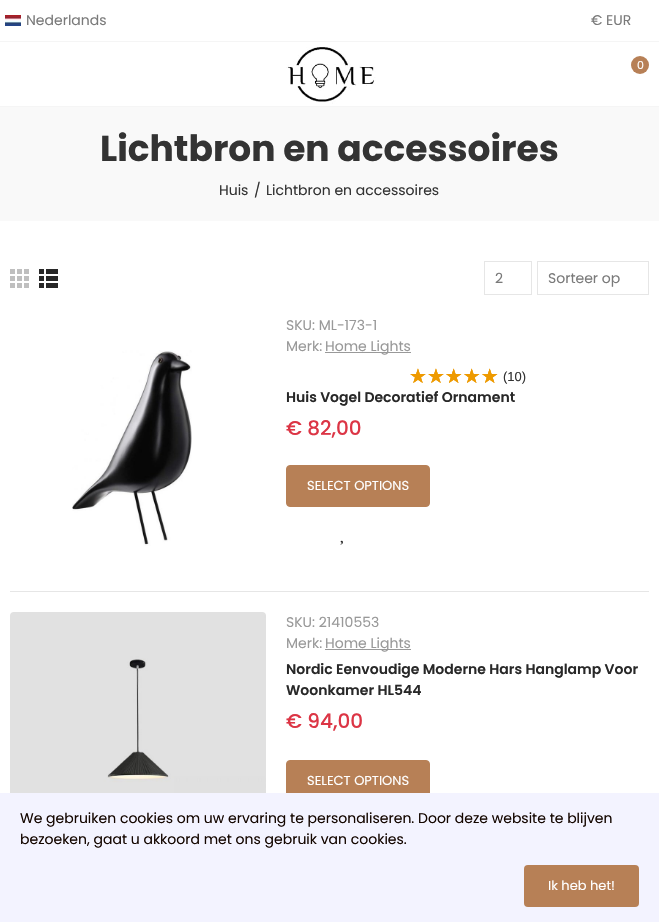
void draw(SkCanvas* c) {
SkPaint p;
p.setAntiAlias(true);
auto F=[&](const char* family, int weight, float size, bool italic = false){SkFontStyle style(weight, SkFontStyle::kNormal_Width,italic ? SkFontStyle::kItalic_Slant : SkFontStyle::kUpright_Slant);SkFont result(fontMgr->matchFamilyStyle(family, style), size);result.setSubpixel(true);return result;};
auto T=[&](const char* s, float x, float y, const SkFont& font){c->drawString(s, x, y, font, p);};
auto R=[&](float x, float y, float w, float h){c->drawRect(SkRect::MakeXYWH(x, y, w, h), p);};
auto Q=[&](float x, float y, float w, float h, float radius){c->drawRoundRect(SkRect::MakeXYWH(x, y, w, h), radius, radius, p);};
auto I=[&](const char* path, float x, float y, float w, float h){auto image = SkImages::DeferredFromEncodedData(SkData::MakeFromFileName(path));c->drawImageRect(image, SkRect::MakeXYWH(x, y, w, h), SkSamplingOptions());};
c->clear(0xffffffff);
p.setColor(0xfff5f5f5);
R(0,41,659,1);
I("1.png",5,15,16,11);
auto f1 = F("Poppins",400,14);
p.setColor(0xff7a7a7a);
T("Nederlands",26,25,f1);
T("€ EUR",591,25,f1);
p.setColor(0xfff5f5f5);
R(0,106,659,1);
I("2.png",286,47,90,57);
p.setColor(0xffb78056);
c->drawCircle(640,65,9,p);
auto f2 = F("Poppins",400,11);
p.setColor(0xffffffff);
T("0",637,69,f2);
p.setColor(0xfff9f9f9);
R(0,107,659,114);
auto f3 = F("Poppins",700,36);
p.setColor(0xff333333);
T("Lichtbron en accessoires",100,161,f3);
T("Huis",219,195,f1);
T("/",254,195,f1);
T("Lichtbron en accessoires",266,195,f1);
I("3.png",10,269,19,19);
I("4.png",39,269,19,19);
p.setStroke(true);
p.setStrokeWidth(1);
p.setColor(0xffe6e6e6);
c->drawRect(SkRect::MakeXYWH(484.5,261.5,47,33),p);
p.setStroke(false);
p.setColor(0xff7a7a7a);
T("2",495,283,f1);
p.setStroke(true);
p.setColor(0xffe6e6e6);
c->drawRect(SkRect::MakeXYWH(537.5,261.5,111,33),p);
p.setStroke(false);
p.setColor(0xff7a7a7a);
T("Sorteer op",548,283,f1);
p.setColor(0xffe6e6e6);
R(10,591,639,1);
I("5.png",72,350,120,196);
p.setColor(0xff999999);
T("SKU: ML-173-1",286,330,f1);
T("Merk:",286,351,f1);
R(325,352,86,1);
T("Home Lights",325,351,f1);
auto f4 = F("DejaVu Sans",400,20);
p.setColor(0xffee9a00);
T("☆☆☆☆☆",409,383,f4);
T("★★★★★",409,383,f4);
auto f5 = F("Liberation Sans",400,13);
p.setColor(0xff333333);
T("(10)",503,381,f5);
auto f6 = F("Poppins",600,14);
p.setColor(0xff282828);
T("Huis Vogel Decoratief Ornament",286,402,f6);
auto f7 = F("Poppins",500,20);
p.setColor(0xffdc3545);
T("€ 82,00",286,435,f7);
p.setColor(0xffb78056);
c->drawRoundRect(SkRect::MakeXYWH(286.5,465.5,143,41),3.5,3.5,p);
p.setStroke(true);
c->drawRoundRect(SkRect::MakeXYWH(286.5,465.5,143,41),3.5,3.5,p);
auto f8 = F("Poppins",400,13);
p.setStroke(false);
p.setColor(0xffffffff);
T("SELECT OPTIONS",307,490,f8);
I("6.png",340,540,3,5);
I("7.png",10,612,256,181);
p.setColor(0xff999999);
T("SKU: 21410553",286,627,f1);
T("Merk:",286,648,f1);
R(325,649,86,1);
T("Home Lights",325,648,f1);
p.setColor(0xff282828);
T("Nordic Eenvoudige Moderne Hars Hanglamp Voor",286,674,f6);
T("Woonkamer HL544",286,695,f6);
p.setColor(0xffdc3545);
T("€ 94,00",286,728,f7);
p.setColor(0xffb78056);
c->drawRoundRect(SkRect::MakeXYWH(286.5,760.5,143,41),3.5,3.5,p);
p.setStroke(true);
c->drawRoundRect(SkRect::MakeXYWH(286.5,760.5,143,41),3.5,3.5,p);
p.setStroke(false);
p.setColor(0xffffffff);
T("SELECT OPTIONS",307,785,f8);
p.setColor(0xfff3f3ff);
R(0,793,659,129);
p.setColor(0xff140600);
T("We gebruiken cookies om uw ervaring te personaliseren. Door deze website te blijven",20,823,f1);
T("bezoeken, gaat u akkoord met ons gebruik van cookies.",20,844,f1);
p.setColor(0xffb78056);
Q(524,865,115,42,4);
p.setColor(0xffffffff);
T("Ik heb het!",548,890,f8);
}
